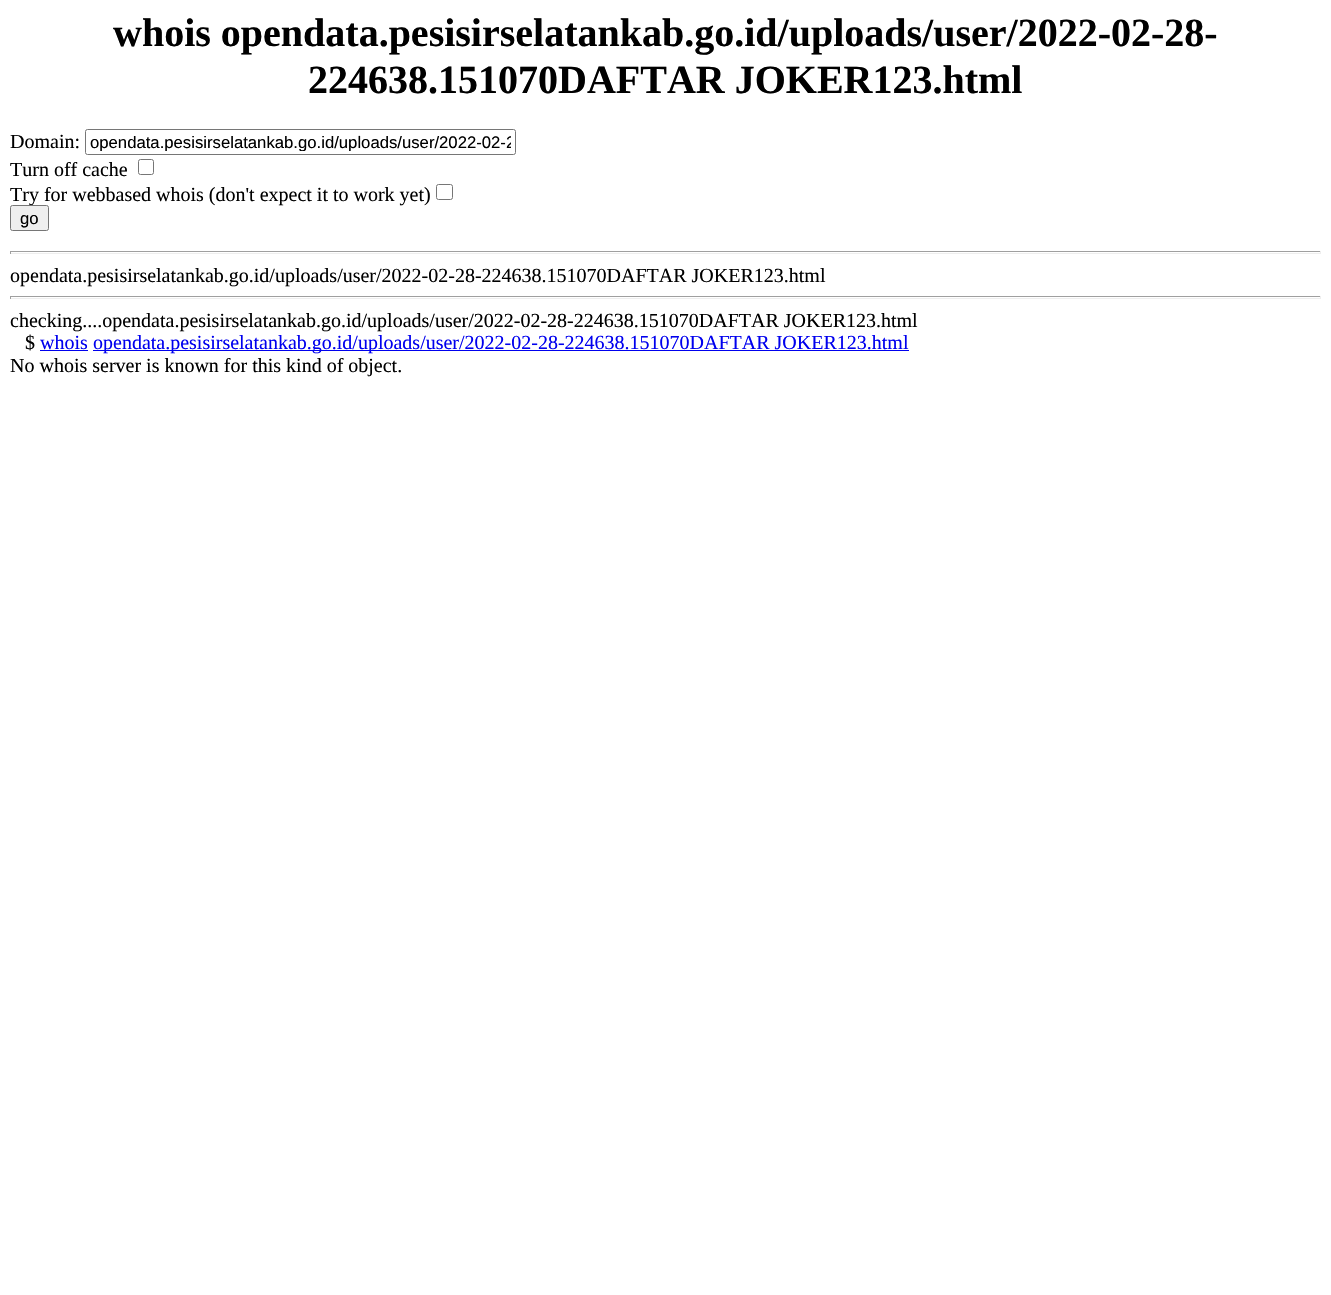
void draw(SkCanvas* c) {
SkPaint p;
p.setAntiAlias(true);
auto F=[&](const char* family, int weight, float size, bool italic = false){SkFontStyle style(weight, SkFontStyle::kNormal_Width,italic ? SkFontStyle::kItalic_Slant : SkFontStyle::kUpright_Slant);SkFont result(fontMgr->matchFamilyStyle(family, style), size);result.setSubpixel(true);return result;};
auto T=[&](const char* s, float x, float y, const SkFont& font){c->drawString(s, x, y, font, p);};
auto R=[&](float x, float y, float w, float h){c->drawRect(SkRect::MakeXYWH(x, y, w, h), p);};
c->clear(0xffffffff);
auto f1 = F("Liberation Serif",700,40);
p.setColor(0xff000000);
T("whois opendata.pesisirselatankab.go.id/uploads/user/2022-02-28-",113,46,f1);
T("224638.151070DAFTAR JOKER123.html",308,93,f1);
auto f2 = F("Liberation Serif",400,20);
T("Domain:",10,148,f2);
p.setStroke(true);
p.setStrokeWidth(1);
p.setColor(0xff767676);
c->drawRoundRect(SkRect::MakeXYWH(85.5,129.5,430,25),2,2,p);
c->save();
c->clipRect(SkRect::MakeXYWH(90,133,421,18));
auto f3 = F("Liberation Sans",400,16.7);
p.setStroke(false);
p.setColor(0xff000000);
T("opendata.pesisirselatankab.go.id/uploads/user/2022-02-2",90,148,f3);
c->restore();
T("Turn off cache",10,176,f2);
p.setStroke(true);
p.setColor(0xff767676);
c->drawRoundRect(SkRect::MakeXYWH(138.5,159.5,15,15),2,2,p);
p.setStroke(false);
p.setColor(0xff000000);
T("Try for webbased whois (don't expect it to work yet)",10,201,f2);
p.setStroke(true);
p.setColor(0xff767676);
c->drawRoundRect(SkRect::MakeXYWH(436.5,184.5,16,15),2,2,p);
p.setStroke(false);
p.setColor(0xffefefef);
c->drawRoundRect(SkRect::MakeXYWH(10.5,205.5,38,25),2,2,p);
p.setStroke(true);
p.setColor(0xff767676);
c->drawRoundRect(SkRect::MakeXYWH(10.5,205.5,38,25),2,2,p);
p.setStroke(false);
p.setColor(0xff000000);
T("go",20,224,f3);
p.setColor(0xff9f9f9f);
R(10,251,1311,1);
p.setColor(0xffeeeeee);
R(1320,251,1,3);
R(10,253,1311,1);
p.setColor(0xff9f9f9f);
R(10,251,1,3);
p.setColor(0xff000000);
T("opendata.pesisirselatankab.go.id/uploads/user/2022-02-28-224638.151070DAFTAR JOKER123.html",10,282,f2);
p.setColor(0xff9f9f9f);
R(10,296,1311,1);
p.setColor(0xffeeeeee);
R(1320,296,1,3);
R(10,298,1311,1);
p.setColor(0xff9f9f9f);
R(10,296,1,3);
p.setColor(0xff000000);
T("checking....opendata.pesisirselatankab.go.id/uploads/user/2022-02-28-224638.151070DAFTAR JOKER123.html",10,327,f2);
T("$",25,349,f2);
p.setColor(0xff0000ee);
T("whois",40,349,f2);
R(40,350,48,1);
R(93,350,816,1);
T("opendata.pesisirselatankab.go.id/uploads/user/2022-02-28-224638.151070DAFTAR JOKER123.html",93,349,f2);
p.setColor(0xff000000);
T("No whois server is known for this kind of object.",10,372,f2);
}
